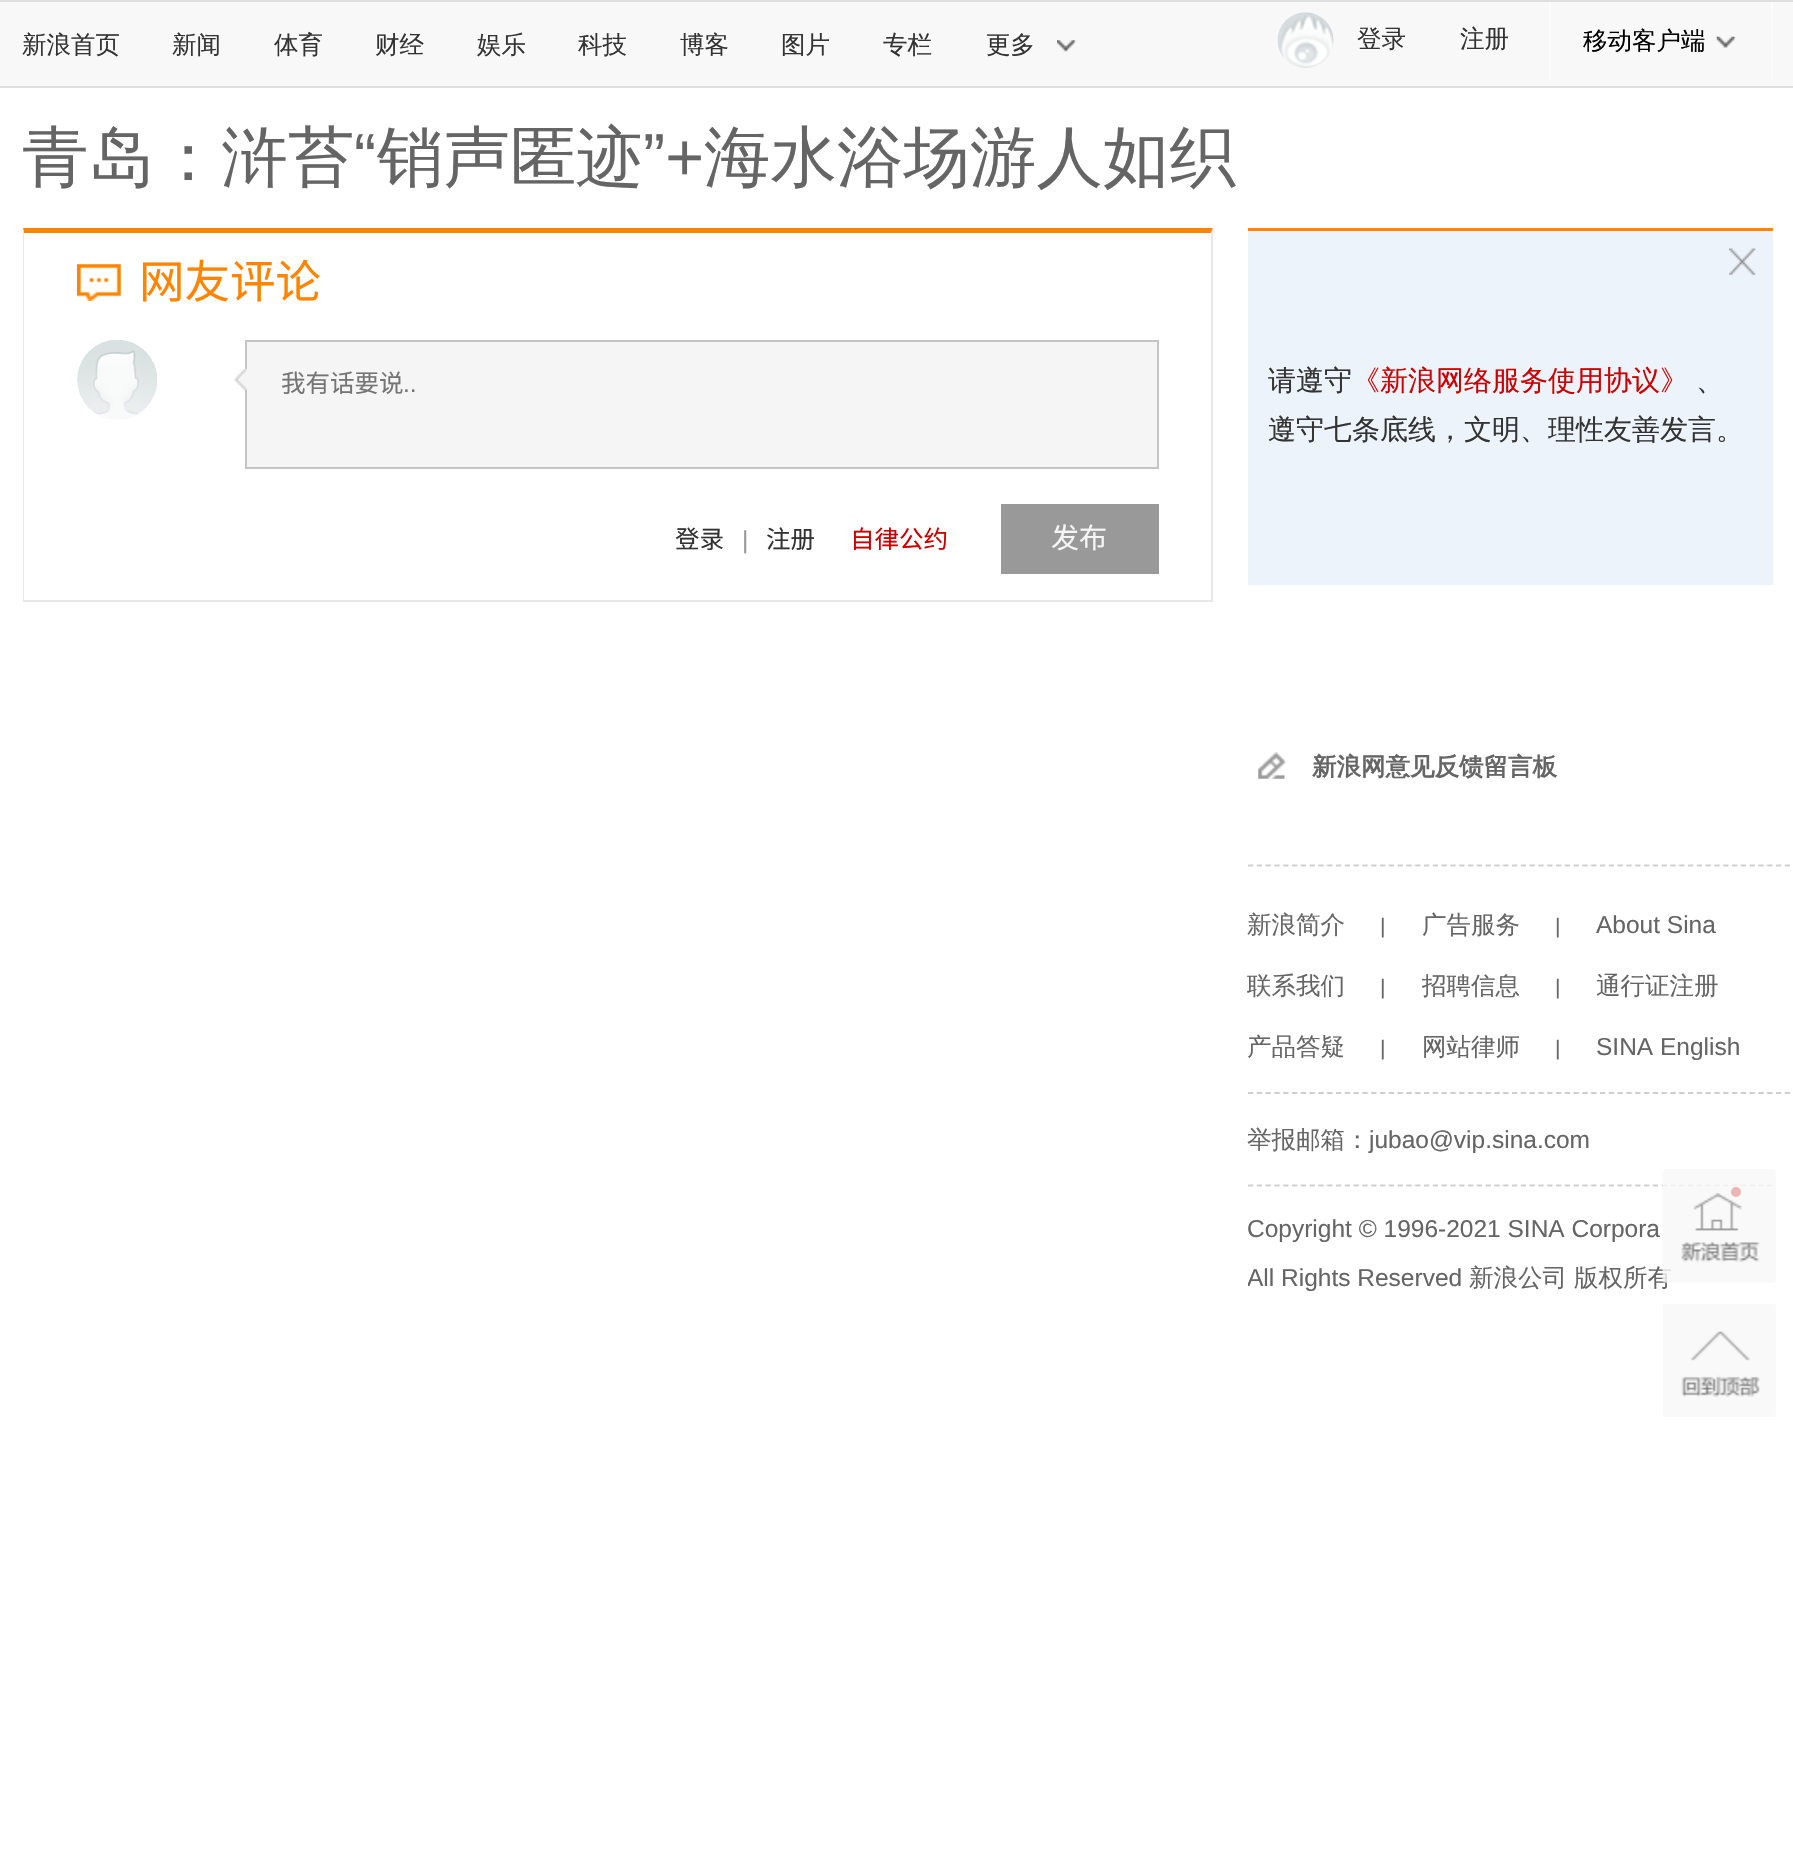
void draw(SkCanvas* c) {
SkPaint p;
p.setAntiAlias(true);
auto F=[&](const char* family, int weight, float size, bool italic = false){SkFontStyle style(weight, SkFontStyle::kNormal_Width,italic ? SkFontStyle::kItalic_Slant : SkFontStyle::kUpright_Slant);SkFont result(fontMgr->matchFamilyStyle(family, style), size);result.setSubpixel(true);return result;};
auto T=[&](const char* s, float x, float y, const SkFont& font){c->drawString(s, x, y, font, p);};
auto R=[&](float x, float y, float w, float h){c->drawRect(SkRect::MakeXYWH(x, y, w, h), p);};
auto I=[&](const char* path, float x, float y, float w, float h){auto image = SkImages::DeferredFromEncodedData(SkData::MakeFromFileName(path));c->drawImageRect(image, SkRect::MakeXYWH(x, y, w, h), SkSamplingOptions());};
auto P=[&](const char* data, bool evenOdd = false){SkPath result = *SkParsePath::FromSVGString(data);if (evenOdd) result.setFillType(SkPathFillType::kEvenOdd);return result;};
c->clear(0xffffffff);
p.setColor(0xfff8f8f8);
R(0,2,1793,84);
p.setColor(0xffdfdfdf);
R(0,0,1793,2);
R(0,86,1793,2);
auto f1 = F("WenQuanYi Zen Hei",500,24.5);
p.setColor(0xff333333);
T("新浪首页",22,53,f1);
T("新闻",172,53,f1);
T("体育",274,53,f1);
T("财经",375,53,f1);
T("娱乐",477,53,f1);
T("科技",578,53,f1);
T("博客",680,53,f1);
T("图片",781,53,f1);
T("专栏",883,53,f1);
T("更多",986,53,f1);
I("1.png",1057,40,20,12);
I("2.png",1277,12,57,56);
T("登录",1357,47,f1);
T("注册",1460,47,f1);
p.setColor(0xfffbfbfb);
R(1771,2,2,79);
R(1549,2,2,79);
p.setColor(0xff000000);
T("移动客户端",1583,49,f1);
I("3.png",1716,36,21,12);
auto f2 = F("WenQuanYi Zen Hei",500,66.5);
p.setColor(0xff656565);
T("青岛：浒苔",22,180,f2);
auto f3 = F("Liberation Sans",400,66.5);
T("“",354,180,f3);
T("销声匿迹",377,180,f2);
T("”+",643,180,f3);
T("海水浴场游人如织",704,180,f2);
p.setColor(0xffff8400);
c->drawPath(P("M23 228h1190l-2 5h-1187z"),p);
p.setColor(0xffe8e8e8);
c->drawPath(P("M1213 228v374l-2-2v-367z"),p);
R(23,600,1190,2);
c->drawPath(P("M23 602v-374l1 5v367z"),p);
I("4.png",77,264,44,37);
auto f4 = F("Noto Sans CJK SC",400,45.5);
p.setColor(0xffff8400);
T("网友评论",139,298,f4);
I("5.png",77,340,80,80);
p.setColor(0xfff5f5f5);
c->drawRect(SkRect::MakeXYWH(246,341,912,127),p);
p.setStroke(true);
p.setStrokeWidth(2);
p.setColor(0xffc5c5c5);
c->drawRect(SkRect::MakeXYWH(246,341,912,127),p);
p.setStroke(false);
p.setColor(0xfff5f5f5);
R(235,369,12,21);
I("6.png",234,369,13,22);
auto f5 = F("Noto Sans CJK SC",400,24.5);
p.setColor(0xff757575);
T("我有话要说",281,392,f5);
auto f6 = F("Liberation Sans",400,24.5);
T("..",403,392,f6);
p.setColor(0xff333333);
T("登录",675,548,f5);
p.setColor(0xff979797);
T("|",742,548,f6);
p.setColor(0xff333333);
T("注册",766,548,f5);
p.setColor(0xffcc0000);
T("自律公约",850,548,f5);
p.setColor(0xff999999);
R(1001,504,158,70);
auto f7 = F("Noto Sans CJK SC",400,28);
p.setColor(0xfff5f5f5);
T("发布",1051,548,f7);
p.setColor(0xffff8400);
R(1248,228,525,3);
p.setColor(0xffedf3fa);
R(1248,231,525,354);
I("7.png",1729,248,27,27);
auto f8 = F("WenQuanYi Zen Hei",500,28);
p.setColor(0xff333333);
T("请遵守",1268,390,f8);
p.setColor(0xffcc0000);
T("《新浪网络服务使用协议》",1352,390,f8);
p.setColor(0xff333333);
T("、",1696,390,f8);
T("遵守七条底线，文明、理性友善发言。",1268,439,f8);
I("8.png",1258,752,29,27);
auto f9 = F("WenQuanYi Zen Hei",700,24.5);
p.setColor(0xff656565);
T("新浪网意见反馈留言板",1312,775,f9);
p.setStroke(true);
p.setStrokeWidth(1.8);
p.setColor(0xffcfcfcf);
p.setPathEffect(SkDashPathEffect::Make({{5.25f,3.55f}}, 0));
c->drawPath(P("M1248 865.5h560"),p);
p.setPathEffect(nullptr);
p.setPathEffect(SkDashPathEffect::Make({{5.25f,3.55f}}, 0));
c->drawPath(P("M1248 1093h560"),p);
p.setPathEffect(nullptr);
p.setStroke(false);
p.setColor(0xff656565);
T("新浪简介",1247,933,f1);
auto f10 = F("Liberation Sans",400,21);
T("|",1380,933,f10);
T("广告服务",1422,933,f1);
T("|",1555,933,f10);
T("About Sina",1596,933,f6);
T("联系我们",1247,994,f1);
T("|",1380,994,f10);
T("招聘信息",1422,994,f1);
T("|",1555,994,f10);
T("通行证注册",1596,994,f1);
T("产品答疑",1247,1055,f1);
T("|",1380,1055,f10);
T("网站律师",1422,1055,f1);
T("|",1555,1055,f10);
T("SINA English",1596,1055,f6);
p.setStroke(true);
p.setColor(0xffcfcfcf);
p.setPathEffect(SkDashPathEffect::Make({{5.25f,3.55f}}, 0));
c->drawPath(P("M1248 1185.5h525"),p);
p.setPathEffect(nullptr);
p.setStroke(false);
p.setColor(0xff656565);
T("举报邮箱：",1247,1148,f1);
T("jubao@vip.sina.com",1369,1148,f6);
T("Copyright © 1996-2021 SINA Corpora",1247,1237,f6);
c->save();
c->clipRect(SkRect::MakeXYWH(1248,1253,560,49));
T("All Rights Reserved",1247,1286,f6);
c->restore();
T("新浪公司",1469,1286,f1);
T("版权所有",1574,1286,f1);
I("9.png",1662,1169,114,114);
p.setColor(0xffebb7b6);
c->drawCircle(1736,1192,5,p);
I("10.png",1663,1304,113,113);
}
